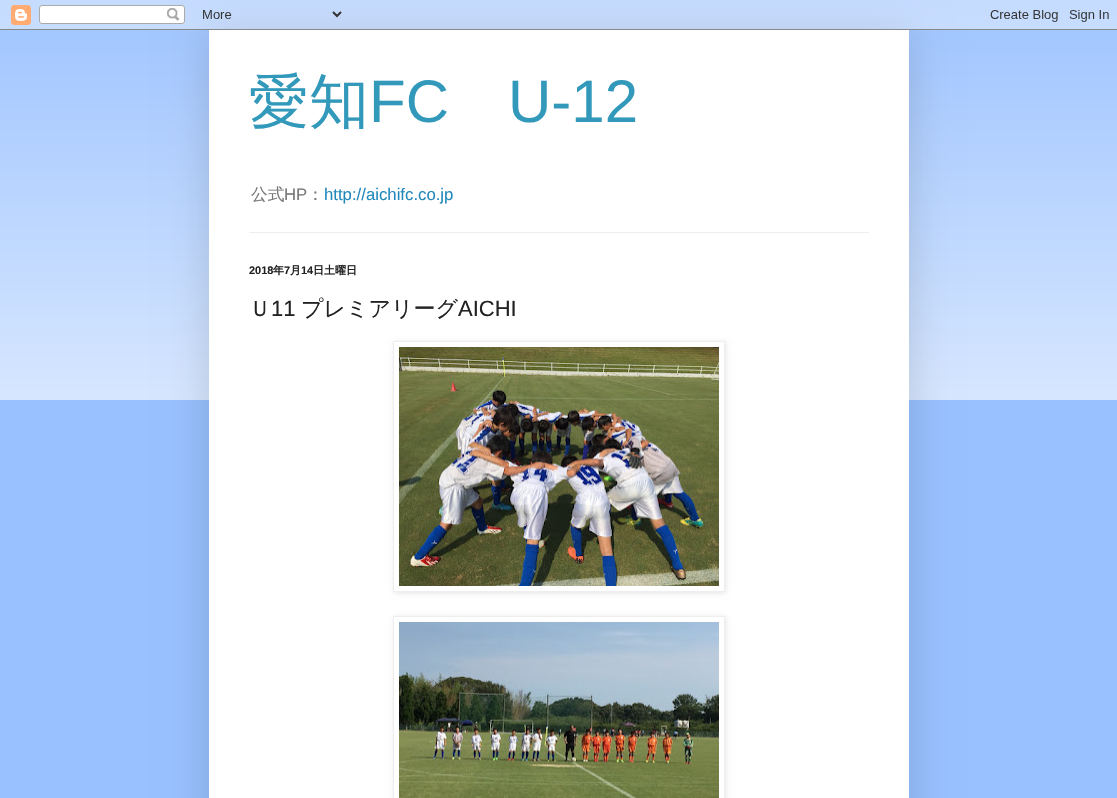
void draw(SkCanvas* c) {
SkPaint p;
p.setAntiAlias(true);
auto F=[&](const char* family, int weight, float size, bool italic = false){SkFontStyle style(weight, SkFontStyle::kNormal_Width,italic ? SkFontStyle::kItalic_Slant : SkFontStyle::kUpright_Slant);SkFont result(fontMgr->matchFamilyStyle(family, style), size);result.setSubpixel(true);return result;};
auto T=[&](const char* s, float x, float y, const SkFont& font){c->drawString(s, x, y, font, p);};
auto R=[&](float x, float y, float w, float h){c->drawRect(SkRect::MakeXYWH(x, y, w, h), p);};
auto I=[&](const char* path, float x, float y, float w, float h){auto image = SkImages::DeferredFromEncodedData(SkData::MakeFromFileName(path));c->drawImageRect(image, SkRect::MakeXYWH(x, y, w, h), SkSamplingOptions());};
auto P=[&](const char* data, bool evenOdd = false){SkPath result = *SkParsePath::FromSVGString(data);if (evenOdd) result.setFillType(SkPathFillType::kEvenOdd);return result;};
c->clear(0xff99c1ff);
I("1.png",0,0,1117,400);
p.setColor(0x26000000);
p.setMaskFilter(SkMaskFilter::MakeBlur(kNormal_SkBlurStyle, 20));
c->drawRect(SkRect::MakeXYWH(209,30,700,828),p);
p.setMaskFilter(nullptr);
I("2.png",0,0,1117,30);
p.setColor(0xffffffff);
R(209,30,700,768);
auto f1 = F("WenQuanYi Zen Hei",500,60);
p.setColor(0xff3399bb);
T("愛知",249,122,f1);
auto f2 = F("Liberation Sans",400,60);
T("FC",369,122,f2);
T("U-12",508,122,f2);
auto f3 = F("WenQuanYi Zen Hei",500,16.75);
p.setColor(0xff777777);
T("公式",251,200,f3);
auto f4 = F("Liberation Sans",400,16.75);
T("HP",284,200,f4);
T("：",307,200,f3);
p.setColor(0xff2288bb);
T("http://aichifc.co.jp",324,200,f4);
p.setColor(0xffeeeeee);
R(249,232,620,1);
auto f5 = F("Liberation Sans",700,11);
p.setColor(0xff222222);
T("2018",249,274,f5);
auto f6 = F("WenQuanYi Zen Hei",700,11);
T("年",273,274,f6);
T("7",284,274,f5);
T("月",290,274,f6);
T("14",301,274,f5);
T("日土曜日",313,274,f6);
auto f7 = F("WenQuanYi Zen Hei",500,22);
T("Ｕ",249,316,f7);
auto f8 = F("Liberation Sans",400,22);
T("11",271,316,f8);
T("プレミアリーグ",301,316,f7);
T("AICHI",458,316,f8);
c->save();
c->clipPath(P("M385 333h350v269h-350zm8 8h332v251h-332z",true),true);
p.setColor(0x1a000000);
p.setMaskFilter(SkMaskFilter::MakeBlur(kNormal_SkBlurStyle, 2.5));
c->drawRect(SkRect::MakeXYWH(394,342,332,251),p);
p.setMaskFilter(nullptr);
c->restore();
p.setStroke(true);
p.setStrokeWidth(1);
p.setColor(0xffeeeeee);
c->drawRect(SkRect::MakeXYWH(393.5,341.5,331,250),p);
I("3.png",399,347,320,239);
c->save();
c->clipPath(P("M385 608h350v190h-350zm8 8h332v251h-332z",true),true);
p.setStroke(false);
p.setColor(0x1a000000);
p.setMaskFilter(SkMaskFilter::MakeBlur(kNormal_SkBlurStyle, 2.5));
c->drawRect(SkRect::MakeXYWH(394,617,332,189),p);
p.setMaskFilter(nullptr);
c->restore();
p.setStroke(true);
p.setColor(0xffeeeeee);
c->drawRect(SkRect::MakeXYWH(393.5,616.5,331,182),p);
I("4.png",399,622,320,176);
}
